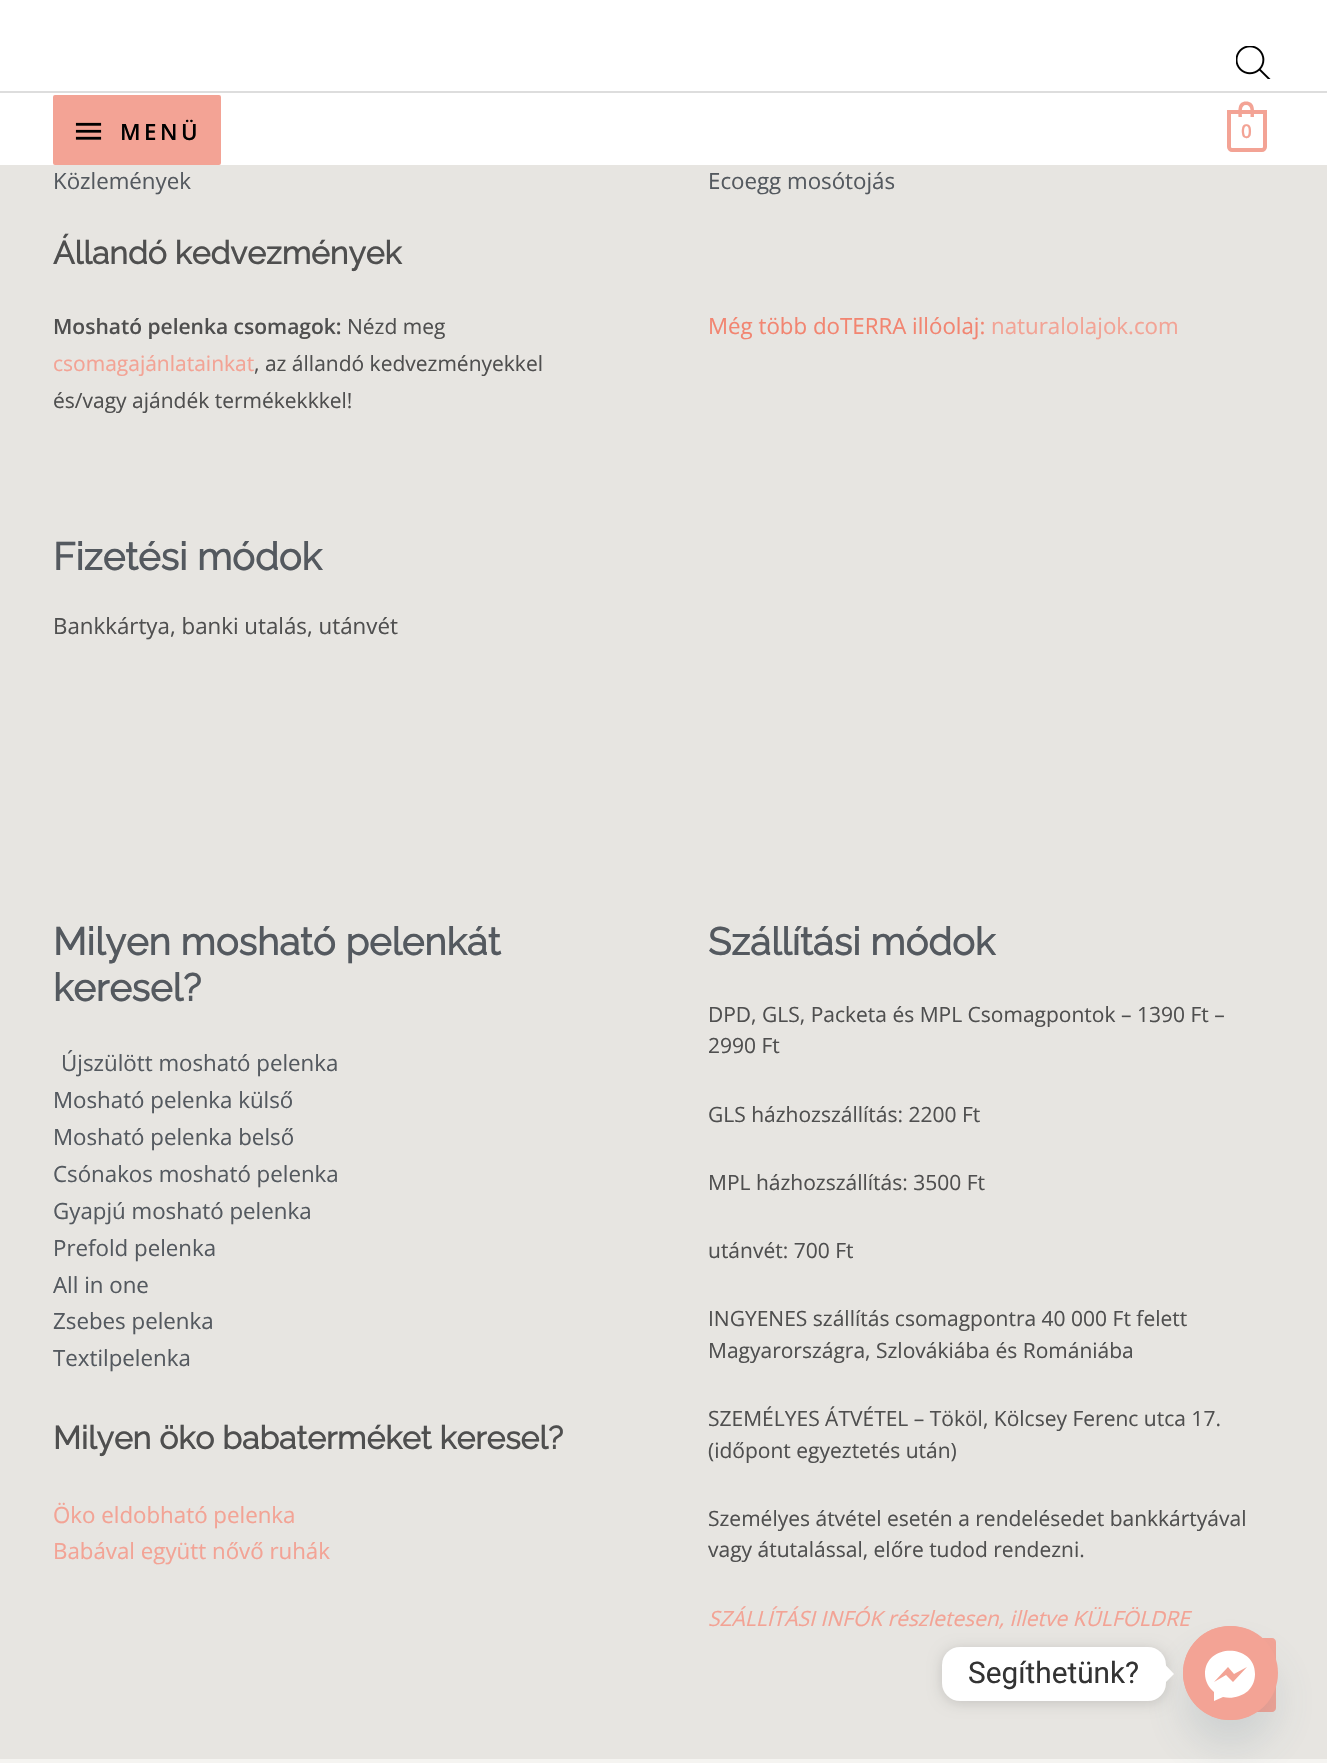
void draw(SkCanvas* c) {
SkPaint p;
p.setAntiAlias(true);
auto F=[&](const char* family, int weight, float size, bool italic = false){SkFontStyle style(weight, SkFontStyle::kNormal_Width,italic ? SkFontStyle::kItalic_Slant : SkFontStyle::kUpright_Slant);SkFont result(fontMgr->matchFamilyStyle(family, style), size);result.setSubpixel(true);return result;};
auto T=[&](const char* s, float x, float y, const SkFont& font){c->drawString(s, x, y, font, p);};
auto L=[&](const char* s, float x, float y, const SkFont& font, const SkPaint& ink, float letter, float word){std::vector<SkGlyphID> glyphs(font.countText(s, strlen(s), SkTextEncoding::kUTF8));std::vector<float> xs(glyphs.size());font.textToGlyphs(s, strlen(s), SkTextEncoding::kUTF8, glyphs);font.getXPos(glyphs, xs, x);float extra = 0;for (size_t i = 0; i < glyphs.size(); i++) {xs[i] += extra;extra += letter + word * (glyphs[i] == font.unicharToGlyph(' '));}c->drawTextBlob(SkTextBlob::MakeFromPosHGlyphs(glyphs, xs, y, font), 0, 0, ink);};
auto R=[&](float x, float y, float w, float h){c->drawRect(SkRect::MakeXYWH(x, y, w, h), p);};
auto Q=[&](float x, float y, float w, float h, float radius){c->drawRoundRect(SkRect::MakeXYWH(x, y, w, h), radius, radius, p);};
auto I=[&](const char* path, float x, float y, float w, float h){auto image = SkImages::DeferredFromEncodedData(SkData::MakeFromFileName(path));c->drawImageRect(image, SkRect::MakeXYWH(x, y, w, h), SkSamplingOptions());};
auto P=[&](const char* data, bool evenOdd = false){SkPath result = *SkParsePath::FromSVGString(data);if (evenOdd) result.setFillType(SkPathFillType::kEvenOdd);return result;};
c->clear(0xffe7e5e1);
p.setColor(0xffffffff);
R(0,0,1327,91);
I("1.png",1236,46,35,33);
R(0,93,1327,72);
p.setColor(0xffdddddd);
R(0,91,1327,2);
p.setColor(0xfff3a395);
c->drawRoundRect(SkRect::MakeXYWH(54,96,166,68),1,1,p);
p.setStroke(true);
p.setStrokeWidth(2);
c->drawRoundRect(SkRect::MakeXYWH(54,96,166,68),1,1,p);
I("2.png",75,122,27,18);
auto f1 = F("Open Sans",600,22.3);
p.setStroke(false);
p.setColor(0xff000000);
L("MENÜ",120,140,f1,p,3.5,0);
p.setStroke(true);
p.setStrokeWidth(4);
p.setColor(0xfff3a395);
c->drawPath(P("M1229 112h36v35c0 1.5-1.5 3-3 3h-30c-1.5 0-3-1.5-3-3z"),p);
p.setStroke(false);
c->drawPath(P("M1246 101.5c9.5 0 8 9.5 8 15.5h-15.5c0-6-1.5-15.5 7.5-15.5zm0 3.5c6 0 4.5 8.5 4.5 12h-8.5c0-3.5-1.5-12 4-12z",true),p);
auto f2 = F("Open Sans",600,19);
T("0",1241,138,f2);
auto f3 = F("Open Sans",400,22.3);
p.setColor(0xff54595f);
T("Közlemények",53,189,f3);
auto f4 = F("Raleway",700,31.9);
p.setColor(0xff4f4f4f);
T("Állandó kedvezmények",53,264,f4);
auto f5 = F("Open Sans",600,21);
T("Mosható pelenka csomagok:",53,334,f5);
auto f6 = F("Open Sans",400,21);
T("Nézd meg",347,334,f6);
p.setColor(0xfff3a395);
T("csomagajánlatainkat",53,371,f6);
p.setColor(0xff4f4f4f);
T(", az állandó kedvezményekkel",254,371,f6);
T("és/vagy ajándék termékekkkel!",53,408,f6);
auto f7 = F("Raleway",700,38.25);
p.setColor(0xff54595f);
T("Fizetési módok",53,570,f7);
p.setColor(0xff4f4f4f);
T("Bankkártya, banki utalás, utánvét",53,634,f3);
p.setColor(0xff54595f);
T("Ecoegg mosótojás",708,189,f3);
p.setColor(0xfff28571);
T("Még több doTERRA illóolaj:",708,334,f3);
p.setColor(0xfff3a395);
T("naturalolajok.com",991,334,f3);
p.setColor(0xff54595f);
T("Milyen mosható pelenkát",53,955,f7);
T("keresel?",53,1001,f7);
T("Újszülött mosható pelenka",61,1071,f3);
T("Mosható pelenka külső",53,1108,f3);
T("Mosható pelenka belső",53,1145,f3);
T("Csónakos mosható pelenka",53,1182,f3);
T("Gyapjú mosható pelenka",53,1219,f3);
T("Prefold pelenka",53,1256,f3);
T("All in one",53,1293,f3);
T("Zsebes pelenka",53,1329,f3);
T("Textilpelenka",53,1366,f3);
p.setColor(0xff4f4f4f);
T("Milyen öko babaterméket keresel?",53,1449,f4);
p.setColor(0xfff3a395);
T("Öko eldobható pelenka",53,1523,f3);
T("Babával együtt nővő ruhák",53,1559,f3);
p.setColor(0xff54595f);
T("Szállítási módok",708,955,f7);
p.setColor(0xff4f4f4f);
T("DPD, GLS, Packeta és MPL Csomagpontok – 1390 Ft –",708,1022,f6);
T("2990 Ft",708,1053,f6);
T("GLS házhozszállítás: 2200 Ft",708,1122,f6);
T("MPL házhozszállítás: 3500 Ft",708,1190,f6);
T("utánvét: 700 Ft",708,1258,f6);
T("INGYENES szállítás csomagpontra 40 000 Ft felett",708,1326,f6);
T("Magyarországra, Szlovákiába és Romániába",708,1358,f6);
T("SZEMÉLYES ÁTVÉTEL – Tököl, Kölcsey Ferenc utca 17.",708,1426,f6);
T("(időpont egyeztetés után)",708,1458,f6);
T("Személyes átvétel esetén a rendelésedet bankkártyával",708,1526,f6);
T("vagy átutalással, előre tudod rendezni.",708,1557,f6);
auto f8 = F("Open Sans",400,21,true);
p.setColor(0xfff3a395);
T("SZÁLLÍTÁSI INFÓK részletesen, illetve KÜLFÖLDRE",708,1626,f8);
p.setColor(0xfff5f4f1);
R(0,1759,1327,4);
p.setColor(0xfff3a395);
c->drawPath(P("M1272 1712h-66c-2 0-4-2-4-4v-66c0-2 2-4 4-4h66c2 0 4 2 4 4v66c0 2-2 4-4 4z"),p);
p.setColor(0x2949687e);
p.setMaskFilter(SkMaskFilter::MakeBlur(kNormal_SkBlurStyle, 21));
c->drawRoundRect(SkRect::MakeXYWH(1183,1654,95,94),47,47,p);
p.setMaskFilter(nullptr);
p.setColor(0xfff3a395);
Q(1183,1626,95,94,47);
c->drawCircle(1230,1673,47,p);
p.setColor(0x26000000);
p.setMaskFilter(SkMaskFilter::MakeBlur(kNormal_SkBlurStyle, 7));
c->drawRoundRect(SkRect::MakeXYWH(942,1649,224,54),18,18,p);
p.setMaskFilter(nullptr);
p.setColor(0xffffffff);
Q(942,1647,224,54,18);
auto f9 = F("Roboto",400,29.75);
p.setColor(0xff333333);
T("Segíthetünk?",968,1683,f9);
p.setColor(0xffffffff);
c->drawPath(P("M1165.5 1682.5v-17.5l8.5 9z"),p);
c->drawPath(P("M1205 1674c0-31 50-31 50 0c0 6-2 12-7 17c-7 6-17 8-25 6l-9 4v-9c-5-4-9-11-9-18zm21 1l7 7l14-15l-13 7l-6-7l-14 15z",true),p);
}
